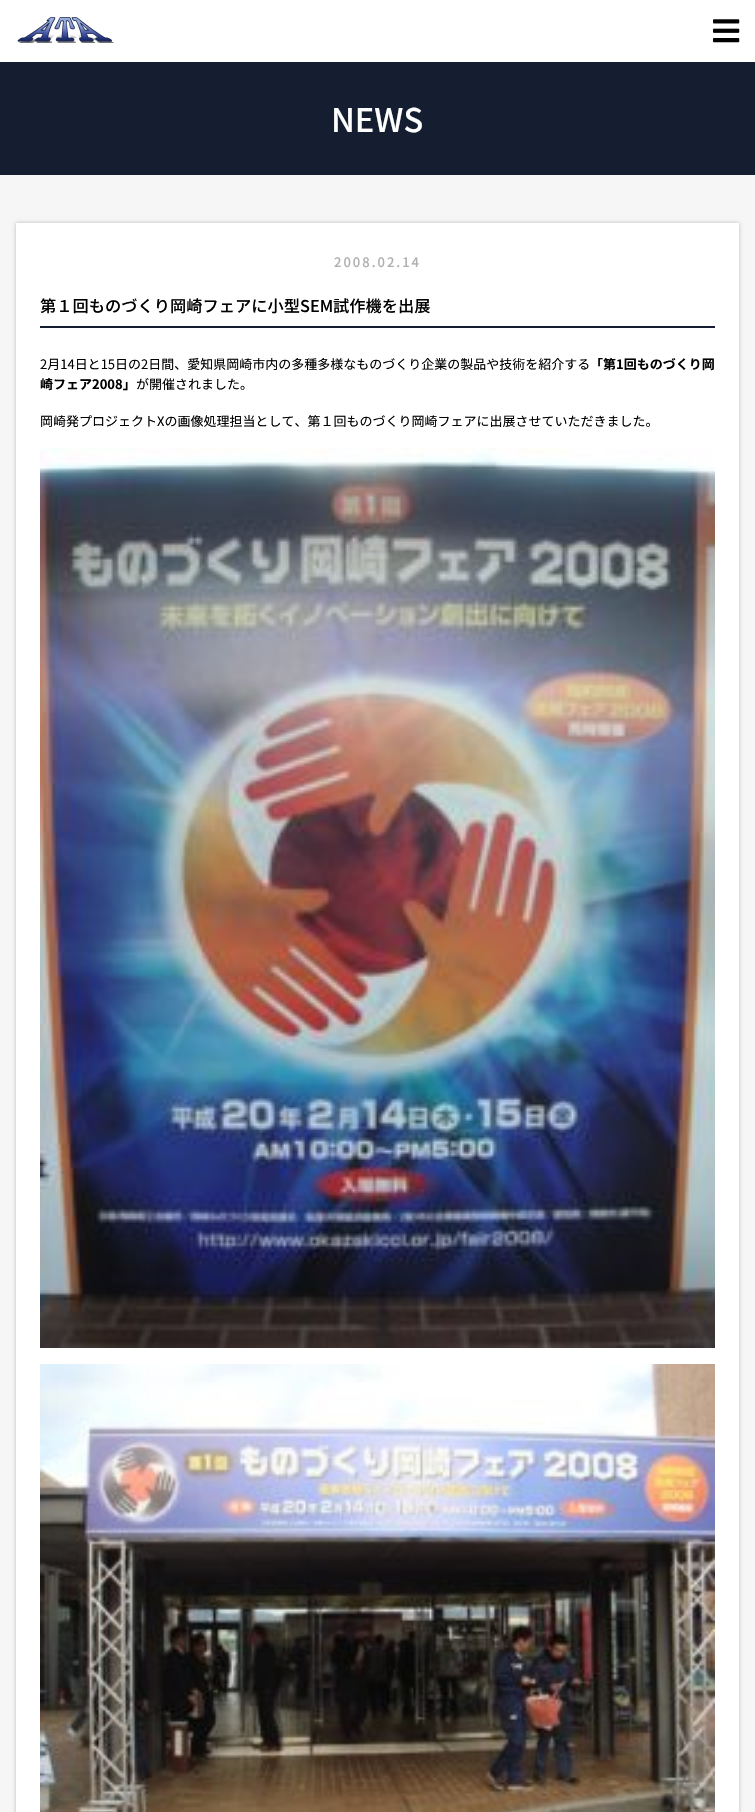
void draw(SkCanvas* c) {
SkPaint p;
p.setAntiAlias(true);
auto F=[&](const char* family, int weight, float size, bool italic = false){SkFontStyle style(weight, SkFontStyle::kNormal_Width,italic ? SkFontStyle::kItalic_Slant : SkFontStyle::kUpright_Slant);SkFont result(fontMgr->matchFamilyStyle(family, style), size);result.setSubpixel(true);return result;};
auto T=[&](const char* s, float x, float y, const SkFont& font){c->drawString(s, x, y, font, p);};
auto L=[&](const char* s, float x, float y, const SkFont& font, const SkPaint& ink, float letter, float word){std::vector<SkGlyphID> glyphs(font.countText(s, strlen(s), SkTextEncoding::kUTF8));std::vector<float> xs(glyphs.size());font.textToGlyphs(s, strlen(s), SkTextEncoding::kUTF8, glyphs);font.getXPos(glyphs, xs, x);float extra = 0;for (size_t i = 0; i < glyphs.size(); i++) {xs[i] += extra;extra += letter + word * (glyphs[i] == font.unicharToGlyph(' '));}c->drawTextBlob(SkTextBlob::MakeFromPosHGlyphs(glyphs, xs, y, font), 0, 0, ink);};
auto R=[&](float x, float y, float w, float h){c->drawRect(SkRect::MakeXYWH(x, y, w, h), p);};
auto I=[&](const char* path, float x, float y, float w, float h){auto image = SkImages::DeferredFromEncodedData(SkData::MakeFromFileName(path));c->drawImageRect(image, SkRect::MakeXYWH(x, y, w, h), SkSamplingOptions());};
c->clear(0xfff6f6f6);
p.setColor(0xffffffff);
R(0,0,755,62);
I("1.png",17,17,97,26);
I("2.png",713,19,27,24);
p.setColor(0xff151e31);
R(0,62,755,113);
auto f1 = F("Noto Sans JP",500,32.5);
p.setColor(0xffffffff);
T("NEWS",331,132,f1);
p.setColor(0xffbbbbbb);
p.setMaskFilter(SkMaskFilter::MakeBlur(kNormal_SkBlurStyle, 2));
c->drawRect(SkRect::MakeXYWH(16,223,723,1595),p);
p.setMaskFilter(nullptr);
p.setColor(0xffffffff);
R(16,223,723,1589);
auto f2 = F("Noto Sans JP",500,13);
p.setColor(0xffafafaf);
L("2008.02.14",334,267,f2,p,2,0);
p.setColor(0xff151e31);
R(40,326,675,2);
auto f3 = F("Noto Sans JP",500,16.25);
p.setColor(0xff000000);
T("第１回ものづくり岡崎フェアに小型SEM試作機を出展",40,312,f3);
auto f4 = F("Noto Sans JP",400,13);
T("2月14日と15日の2日間、愛知県岡崎市内の多種多様なものづくり企業の製品や技術を紹介する",40,369,f4);
auto f5 = F("Noto Sans JP",700,13);
T("「第1回ものづくり岡",590,369,f5);
T("崎フェア2008」",40,389,f5);
T("が開催されました。",136,389,f4);
T("岡崎発プロジェクトXの画像処理担当として、第１回ものづくり岡崎フェアに出展させていただきました。",40,426,f4);
I("3.png",40,448,675,900);
I("4.png",40,1364,675,448);
}
